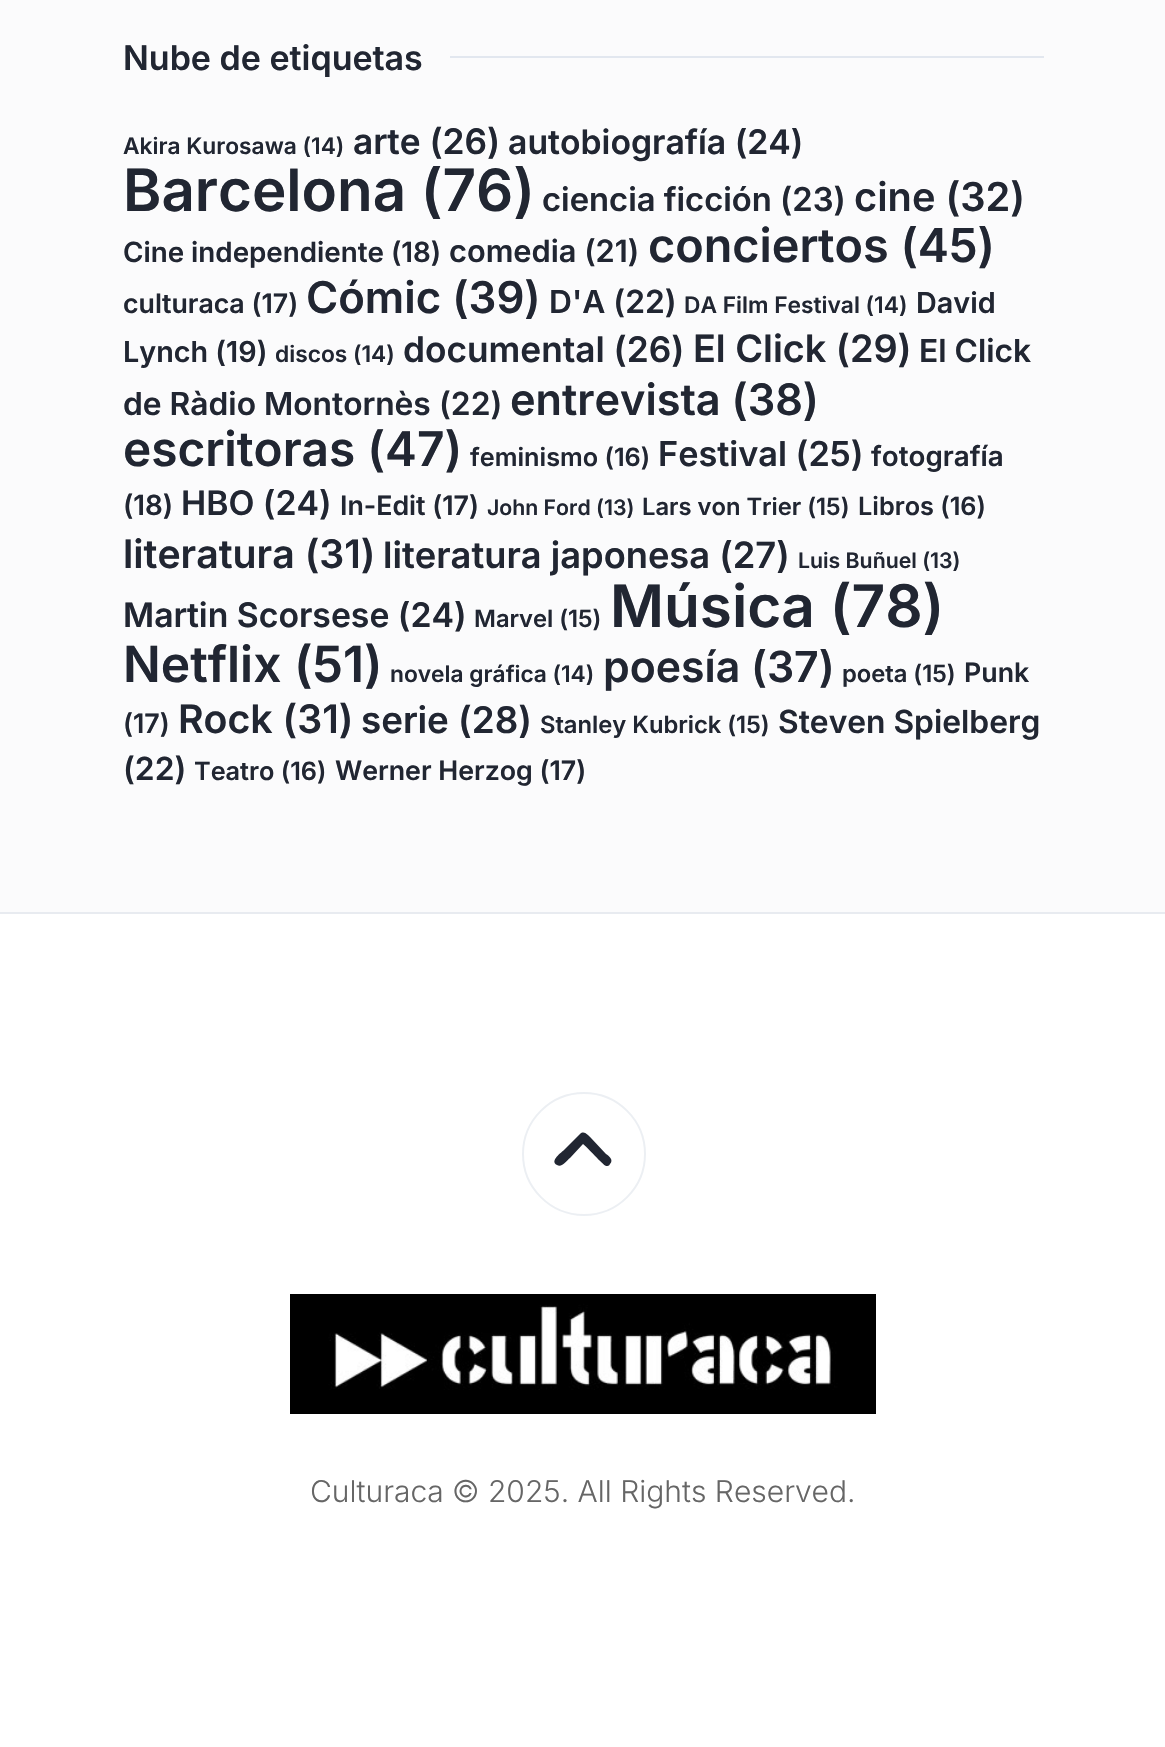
void draw(SkCanvas* c) {
SkPaint p;
p.setAntiAlias(true);
auto F=[&](const char* family, int weight, float size, bool italic = false){SkFontStyle style(weight, SkFontStyle::kNormal_Width,italic ? SkFontStyle::kItalic_Slant : SkFontStyle::kUpright_Slant);SkFont result(fontMgr->matchFamilyStyle(family, style), size);result.setSubpixel(true);return result;};
auto T=[&](const char* s, float x, float y, const SkFont& font){c->drawString(s, x, y, font, p);};
auto R=[&](float x, float y, float w, float h){c->drawRect(SkRect::MakeXYWH(x, y, w, h), p);};
auto I=[&](const char* path, float x, float y, float w, float h){auto image = SkImages::DeferredFromEncodedData(SkData::MakeFromFileName(path));c->drawImageRect(image, SkRect::MakeXYWH(x, y, w, h), SkSamplingOptions());};
auto P=[&](const char* data, bool evenOdd = false){SkPath result = *SkParsePath::FromSVGString(data);if (evenOdd) result.setFillType(SkPathFillType::kEvenOdd);return result;};
c->clear(0xfffbfbfc);
auto f1 = F("Inter",600,34);
p.setColor(0xff212632);
T("Nube de etiquetas",123,70,f1);
p.setColor(0xffe2e7ef);
R(450,56,594,2);
auto f2 = F("Inter",600,22.75);
p.setColor(0xff212632);
T("Akira Kurosawa (14)",123,154,f2);
auto f3 = F("Inter",600,35.25);
T("arte (26)",353,154,f3);
auto f4 = F("Inter",600,33.75);
T("autobiografía (24)",508,154,f4);
auto f5 = F("Inter",600,58.25);
T("Barcelona (76)",123,211,f5);
auto f6 = F("Inter",600,32.75);
T("ciencia ficción (23)",542,211,f6);
auto f7 = F("Inter",600,39.75);
T("cine (32)",854,211,f7);
auto f8 = F("Inter",600,27.75);
T("Cine independiente (18)",123,262,f8);
auto f9 = F("Inter",600,30.75);
T("comedia (21)",449,262,f9);
auto f10 = F("Inter",600,46.75);
T("conciertos (45)",648,262,f10);
auto f11 = F("Inter",600,26.75);
T("culturaca (17)",123,313,f11);
auto f12 = F("Inter",600,43.75);
T("Cómic (39)",306,313,f12);
auto f13 = F("Inter",600,31.75);
T("D'A (22)",549,313,f13);
T("DA Film Festival (14)",684,313,f2);
auto f14 = F("Inter",600,28.75);
T("David",916,313,f14);
T("Lynch (19)",123,362,f14);
T("discos (14)",275,362,f2);
T("documental (26)",403,362,f3);
auto f15 = F("Inter",600,37.75);
T("El Click (29)",693,362,f15);
T("El Click",919,362,f13);
T("de Ràdio Montornès",123,415,f13);
T("(22)",439,415,f13);
auto f16 = F("Inter",600,43.25);
T("entrevista (38)",510,415,f16);
auto f17 = F("Inter",600,47.75);
T("escritoras (47)",123,466,f17);
auto f18 = F("Inter",600,25.25);
T("feminismo (16)",470,466,f18);
auto f19 = F("Inter",600,34.25);
T("Festival (25)",658,466,f19);
T("fotografía",871,466,f8);
T("(18)",123,515,f8);
T("HBO (24)",181,515,f4);
T("In-Edit (17)",340,515,f11);
auto f20 = F("Inter",600,21.25);
T("John Ford (13)",487,515,f20);
auto f21 = F("Inter",600,23.75);
T("Lars von Trier (15)",642,515,f21);
T("Libros (16)",858,515,f18);
auto f22 = F("Inter",600,39.25);
T("literatura (31)",123,568,f22);
auto f23 = F("Inter",600,36.25);
T("literatura japonesa (27)",383,568,f23);
T("Luis Buñuel (13)",798,568,f20);
T("Martin Scorsese (24)",123,627,f4);
T("Marvel (15)",474,627,f21);
auto f24 = F("Inter",600,58.5);
T("Música (78)",610,627,f24);
auto f25 = F("Inter",600,49.75);
T("Netflix (51)",123,682,f25);
T("novela gráfica (14)",390,682,f2);
auto f26 = F("Inter",600,42.75);
T("poesía (37)",603,682,f26);
T("poeta (15)",842,682,f21);
T("Punk",964,682,f11);
T("(17)",123,733,f11);
T("Rock (31)",178,733,f22);
auto f27 = F("Inter",600,36.75);
T("serie (28)",361,733,f27);
T("Stanley Kubrick (15)",540,733,f21);
T("Steven Spielberg",778,733,f13);
T("(22)",123,780,f13);
T("Teatro (16)",194,780,f18);
T("Werner Herzog (17)",335,780,f11);
p.setStroke(true);
p.setStrokeWidth(2);
p.setColor(0xffe8ebf0);
c->drawRect(SkRect::MakeXYWH(-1,913,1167,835),p);
p.setStroke(false);
p.setColor(0xffffffff);
R(0,914,1165,833);
p.setStroke(true);
p.setColor(0x14123769);
c->drawCircle(584,1154,61,p);
p.setStroke(false);
p.setColor(0xff212632);
c->drawPath(P("M580 1134c4-4 8 1 11 4l15 16c3 2 8 6 4 10c-1 2-2 2-4 2c-3-1-19-19-23-22l-13 14c-3 2-8 10-13 7c-8-4 5-13 7-15z"),p);
I("1.png",290,1294,586,120);
auto f28 = F("Inter",300,30);
p.setColor(0xff666666);
T("Culturaca © 2025. All Rights Reserved.",310,1502,f28);
}
